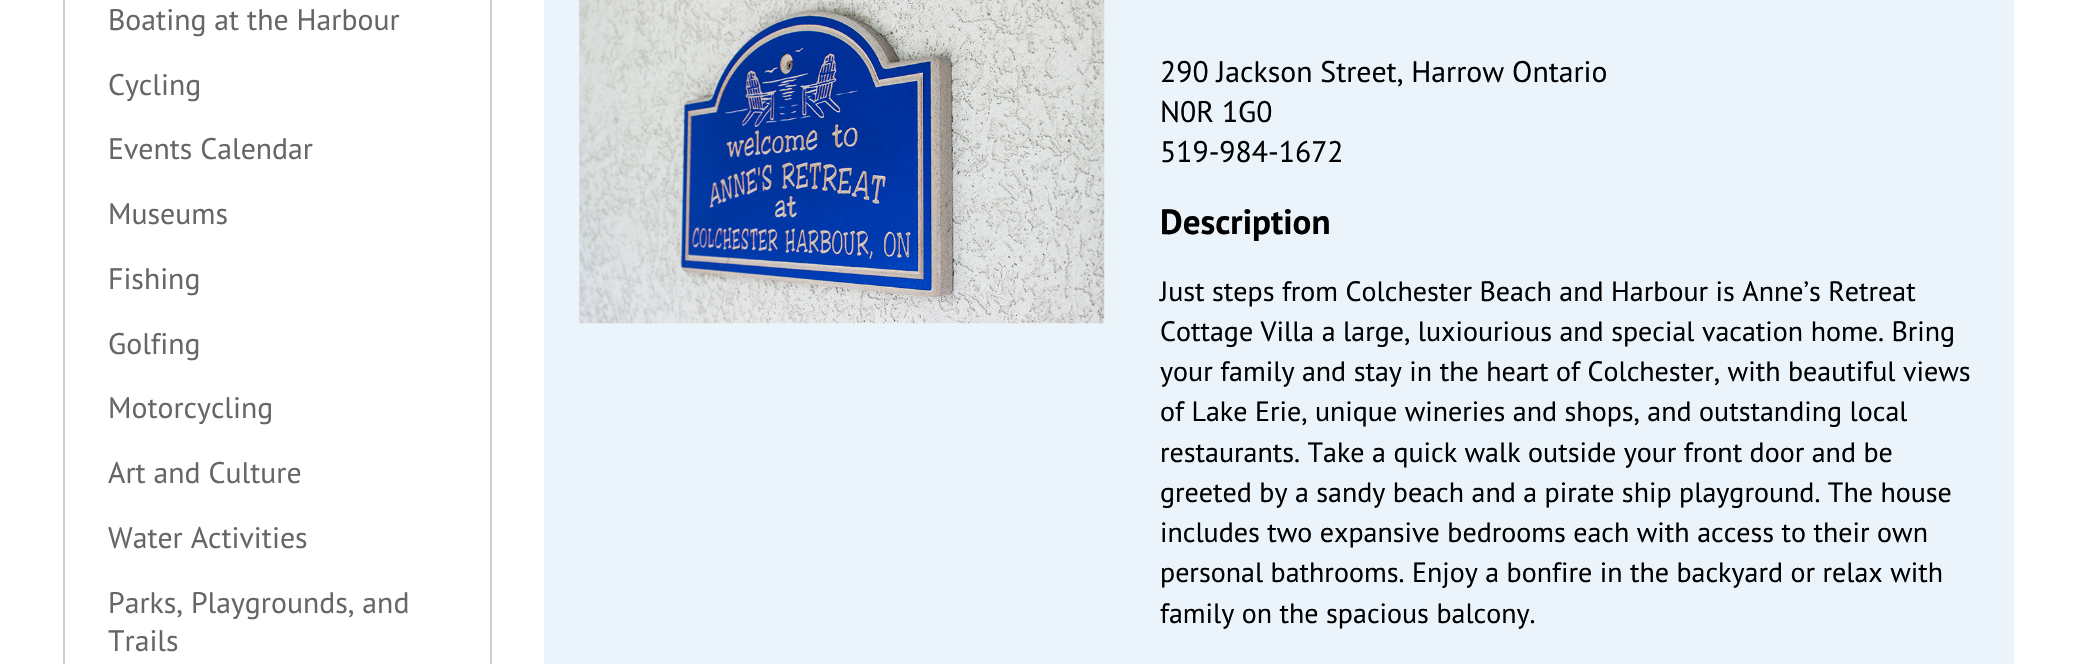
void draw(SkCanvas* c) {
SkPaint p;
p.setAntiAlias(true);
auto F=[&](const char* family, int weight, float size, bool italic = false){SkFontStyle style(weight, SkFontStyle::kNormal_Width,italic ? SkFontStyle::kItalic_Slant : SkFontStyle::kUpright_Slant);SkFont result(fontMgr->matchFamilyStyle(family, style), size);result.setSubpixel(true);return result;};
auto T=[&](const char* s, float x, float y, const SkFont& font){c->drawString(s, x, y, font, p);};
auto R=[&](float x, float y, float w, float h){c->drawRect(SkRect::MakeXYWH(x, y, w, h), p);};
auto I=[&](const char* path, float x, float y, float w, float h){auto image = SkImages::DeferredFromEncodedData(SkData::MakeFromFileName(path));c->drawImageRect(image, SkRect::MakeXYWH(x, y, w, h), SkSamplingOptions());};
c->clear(0xffffffff);
p.setStroke(true);
p.setStrokeWidth(2);
p.setColor(0xffd0d0d0);
c->drawRect(SkRect::MakeXYWH(64,-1,427,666),p);
auto f1 = F("PT Sans",400,29.75);
p.setStroke(false);
p.setColor(0xff666666);
T("Boating at the Harbour",108,30,f1);
T("Cycling",108,95,f1);
T("Events Calendar",108,159,f1);
T("Museums",108,224,f1);
T("Fishing",108,289,f1);
T("Golfing",108,354,f1);
T("Motorcycling",108,418,f1);
T("Art and Culture",108,483,f1);
T("Water Activities",108,548,f1);
T("Parks, Playgrounds, and",108,613,f1);
T("Trails",108,651,f1);
p.setColor(0xffebf4fa);
R(544,0,1470,664);
I("1.png",579,0,526,324);
p.setColor(0xff000000);
T("290 Jackson Street, Harrow Ontario",1160,82,f1);
T("N0R 1G0",1160,122,f1);
T("519-984-1672",1160,162,f1);
auto f2 = F("PT Sans",700,35);
T("Description",1160,234,f2);
auto f3 = F("PT Sans",400,28);
T("Just steps from Colchester Beach and Harbour is Anne’s Retreat",1160,301,f3);
T("Cottage Villa a large, luxiourious and special vacation home. Bring",1160,341,f3);
T("your family and stay in the heart of Colchester, with beautiful views",1160,381,f3);
T("of Lake Erie, unique wineries and shops, and outstanding local",1160,421,f3);
T("restaurants. Take a quick walk outside your front door and be",1160,462,f3);
T("greeted by a sandy beach and a pirate ship playground. The house",1160,502,f3);
T("includes two expansive bedrooms each with access to their own",1160,542,f3);
T("personal bathrooms. Enjoy a bonfire in the backyard or relax with",1160,582,f3);
T("family on the spacious balcony.",1160,623,f3);
}
